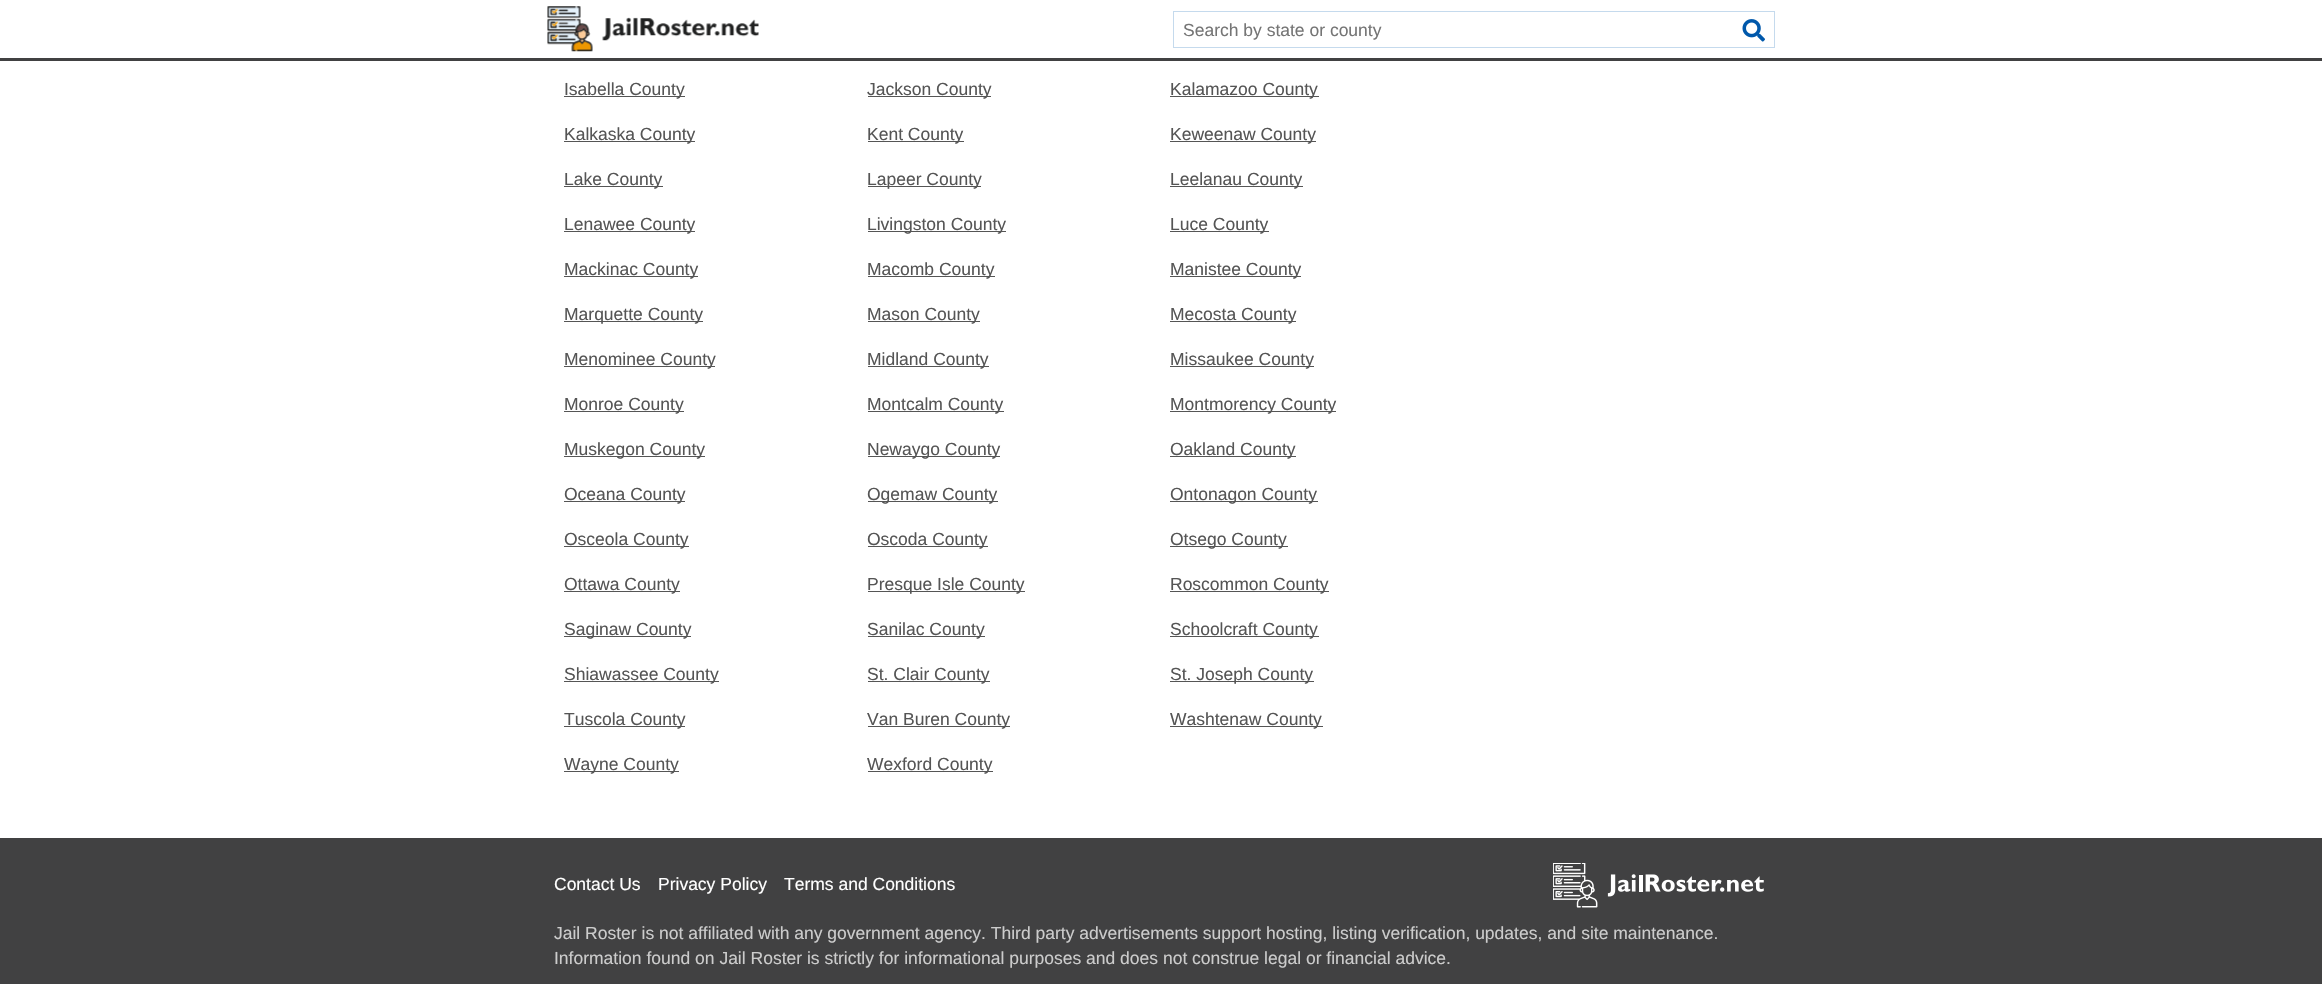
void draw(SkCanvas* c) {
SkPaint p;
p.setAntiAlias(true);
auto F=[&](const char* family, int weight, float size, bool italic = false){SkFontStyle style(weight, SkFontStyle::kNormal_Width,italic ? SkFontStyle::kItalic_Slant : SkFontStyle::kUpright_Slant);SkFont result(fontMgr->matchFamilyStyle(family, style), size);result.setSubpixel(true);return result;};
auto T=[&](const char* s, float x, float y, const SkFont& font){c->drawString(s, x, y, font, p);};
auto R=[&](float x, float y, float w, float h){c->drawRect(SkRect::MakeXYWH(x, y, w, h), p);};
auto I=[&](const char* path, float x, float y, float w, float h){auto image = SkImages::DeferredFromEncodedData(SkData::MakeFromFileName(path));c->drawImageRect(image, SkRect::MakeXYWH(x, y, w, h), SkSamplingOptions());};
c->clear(0xffffffff);
p.setColor(0xff414142);
R(0,58,2322,3);
I("1.png",547,6,212,46);
p.setStroke(true);
p.setStrokeWidth(1);
p.setColor(0xffc5daed);
c->drawRect(SkRect::MakeXYWH(1173.5,11.5,601,36),p);
auto f1 = F("Liberation Sans",400,17.5);
p.setStroke(false);
p.setColor(0xff757575);
T("Search by state or county",1183,36,f1);
I("2.png",1742,19,23,23);
p.setColor(0xff555555);
R(564,96,121,1);
T("Isabella County",564,95,f1);
R(868,96,123,1);
T("Jackson County",867,95,f1);
R(1170,96,149,1);
T("Kalamazoo County",1170,95,f1);
R(564,141,131,1);
T("Kalkaska County",564,140,f1);
R(868,141,96,1);
T("Kent County",867,140,f1);
R(1170,141,146,1);
T("Keweenaw County",1170,140,f1);
R(564,186,99,1);
T("Lake County",564,185,f1);
R(868,186,113,1);
T("Lapeer County",867,185,f1);
R(1170,186,133,1);
T("Leelanau County",1170,185,f1);
R(564,231,131,1);
T("Lenawee County",564,230,f1);
R(868,231,138,1);
T("Livingston County",867,230,f1);
R(1170,231,99,1);
T("Luce County",1170,230,f1);
R(564,276,134,1);
T("Mackinac County",564,275,f1);
R(868,276,127,1);
T("Macomb County",867,275,f1);
R(1170,276,131,1);
T("Manistee County",1170,275,f1);
R(564,321,139,1);
T("Marquette County",564,320,f1);
R(868,321,112,1);
T("Mason County",867,320,f1);
R(1170,321,126,1);
T("Mecosta County",1170,320,f1);
R(564,366,151,1);
T("Menominee County",564,365,f1);
R(868,366,121,1);
T("Midland County",867,365,f1);
R(1170,366,144,1);
T("Missaukee County",1170,365,f1);
R(564,411,120,1);
T("Monroe County",564,410,f1);
R(868,411,136,1);
T("Montcalm County",867,410,f1);
R(1170,411,166,1);
T("Montmorency County",1170,410,f1);
R(564,456,141,1);
T("Muskegon County",564,455,f1);
R(868,456,132,1);
T("Newaygo County",867,455,f1);
R(1170,456,126,1);
T("Oakland County",1170,455,f1);
R(564,501,121,1);
T("Oceana County",564,500,f1);
R(868,501,130,1);
T("Ogemaw County",867,500,f1);
R(1170,501,148,1);
T("Ontonagon County",1170,500,f1);
R(564,546,125,1);
T("Osceola County",564,545,f1);
R(868,546,120,1);
T("Oscoda County",867,545,f1);
R(1170,546,118,1);
T("Otsego County",1170,545,f1);
R(564,591,116,1);
T("Ottawa County",564,590,f1);
R(868,591,157,1);
T("Presque Isle County",867,590,f1);
R(1170,591,159,1);
T("Roscommon County",1170,590,f1);
R(564,636,127,1);
T("Saginaw County",564,635,f1);
R(868,636,117,1);
T("Sanilac County",867,635,f1);
R(1170,636,149,1);
T("Schoolcraft County",1170,635,f1);
R(564,681,155,1);
T("Shiawassee County",564,680,f1);
R(868,681,122,1);
T("St. Clair County",867,680,f1);
R(1170,681,144,1);
T("St. Joseph County",1170,680,f1);
R(564,726,121,1);
T("Tuscola County",564,725,f1);
R(868,726,142,1);
T("Van Buren County",867,725,f1);
R(1170,726,153,1);
T("Washtenaw County",1170,725,f1);
R(564,771,115,1);
T("Wayne County",564,770,f1);
R(868,771,125,1);
T("Wexford County",867,770,f1);
p.setColor(0xff414142);
R(0,838,2322,146);
p.setColor(0xffffffff);
T("Contact Us",554,890,f1);
T("Privacy Policy",658,890,f1);
T("Terms and Conditions",784,890,f1);
I("3.png",1553,863,211,45);
p.setColor(0xffcccccc);
T("Jail Roster is not affiliated with any government agency. Third party advertisements support hosting, listing verification, updates, and site maintenance.",554,939,f1);
T("Information found on Jail Roster is strictly for informational purposes and does not construe legal or financial advice.",554,964,f1);
}
